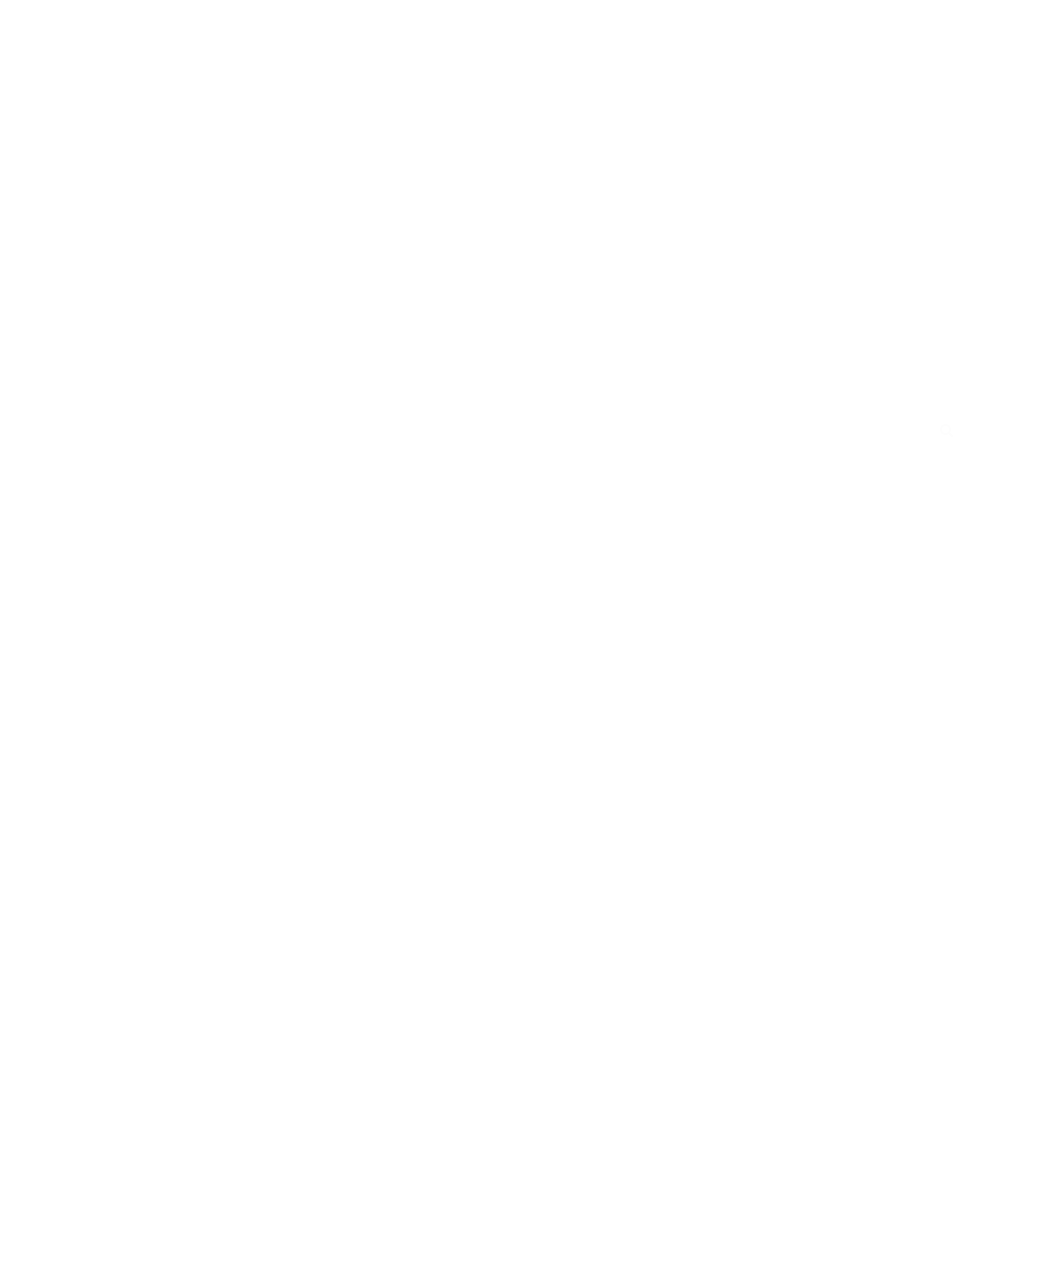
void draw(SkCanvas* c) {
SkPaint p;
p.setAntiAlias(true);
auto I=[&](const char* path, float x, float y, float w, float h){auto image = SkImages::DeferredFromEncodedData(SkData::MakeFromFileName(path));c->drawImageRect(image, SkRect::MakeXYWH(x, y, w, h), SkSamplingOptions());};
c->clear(0xffffffff);
I("1.png",940,424,13,13);
}
